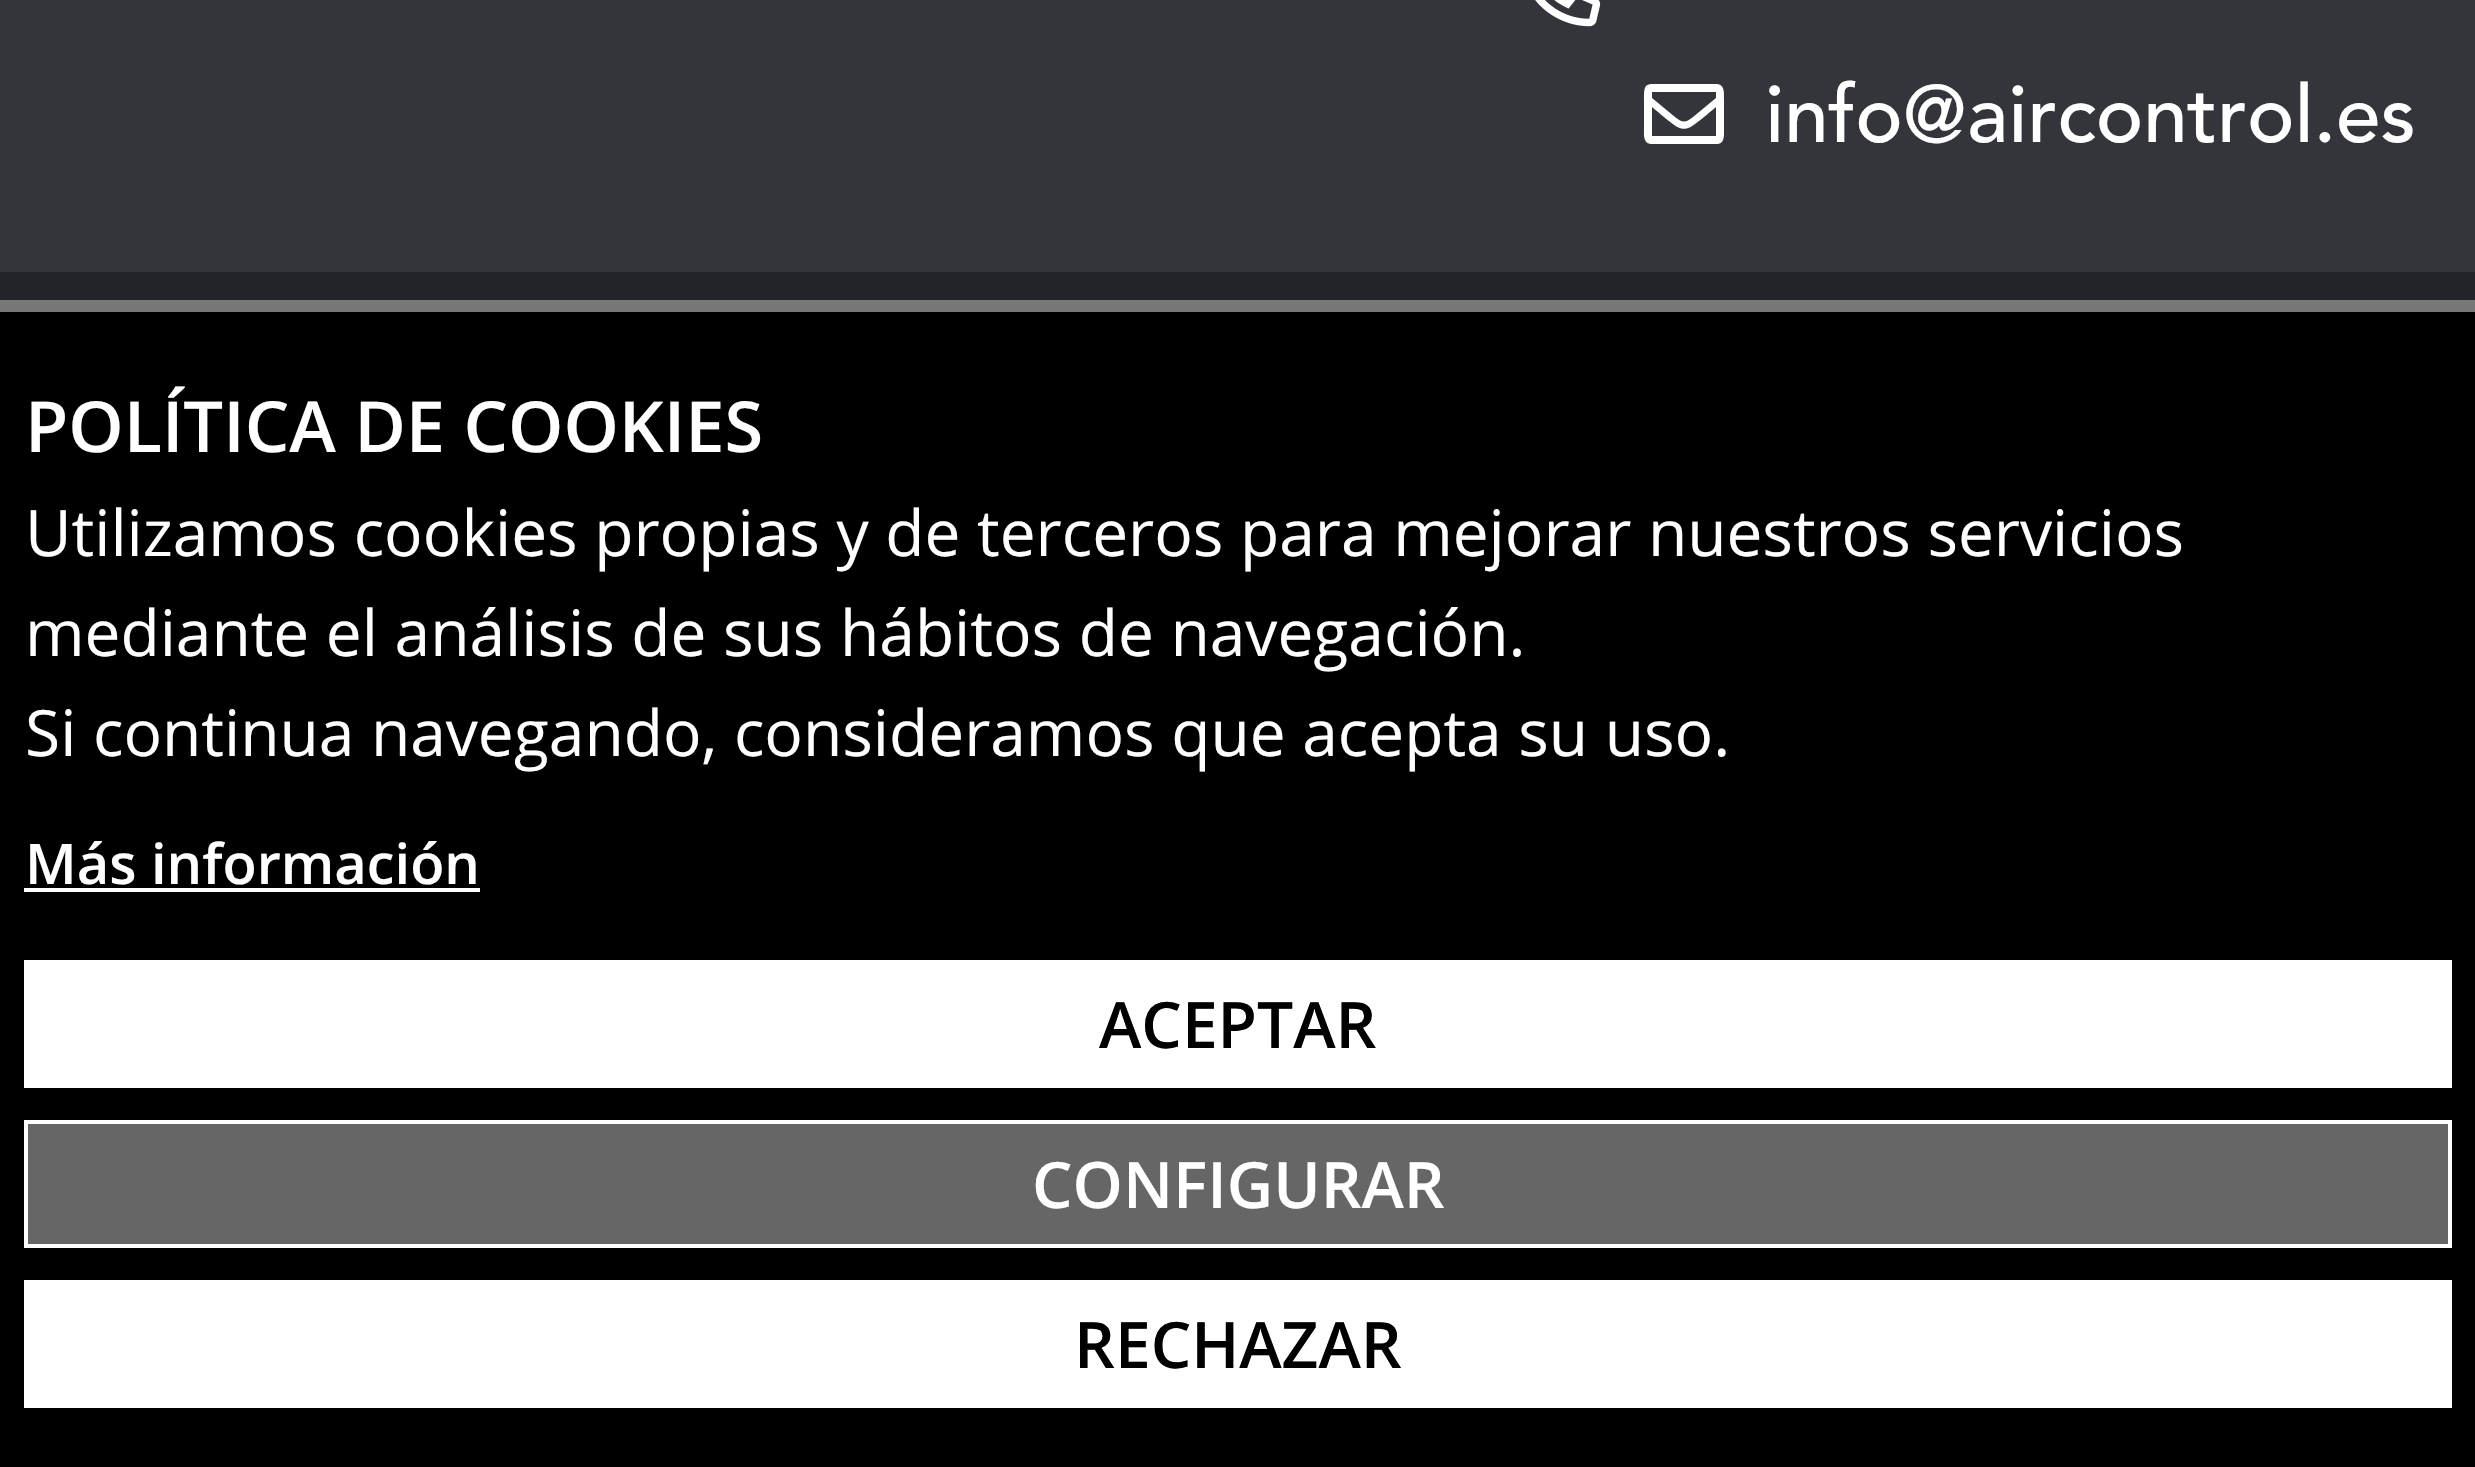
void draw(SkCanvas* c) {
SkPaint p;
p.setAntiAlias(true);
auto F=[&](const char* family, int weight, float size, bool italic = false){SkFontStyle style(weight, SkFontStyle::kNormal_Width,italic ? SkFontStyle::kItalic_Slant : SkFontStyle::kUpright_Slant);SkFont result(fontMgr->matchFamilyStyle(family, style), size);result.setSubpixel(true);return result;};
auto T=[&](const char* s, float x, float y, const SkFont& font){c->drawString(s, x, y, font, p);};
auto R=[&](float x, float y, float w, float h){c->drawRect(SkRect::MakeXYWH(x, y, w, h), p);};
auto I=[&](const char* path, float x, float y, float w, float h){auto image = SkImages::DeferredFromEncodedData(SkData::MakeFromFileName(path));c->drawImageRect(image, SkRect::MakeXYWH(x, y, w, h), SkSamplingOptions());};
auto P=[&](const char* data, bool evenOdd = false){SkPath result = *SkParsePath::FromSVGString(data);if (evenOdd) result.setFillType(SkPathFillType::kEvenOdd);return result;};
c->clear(0xff23242a);
p.setColor(0xff34353b);
R(0,0,2475,272);
I("1.png",1535,0,66,27);
p.setColor(0xffffffff);
c->drawPath(P("M1716 84c9 0 8 9 8 15v30c0 5 1 14-6 15h-66c-9 0-8-9-8-15v-30c0-17 2-15 18-15zm0 8h-64v6l23 19c8 6 10 6 18 0l23-19zm-64 44h64v-29c-35 29-29 29-64 0z"),p);
auto f1 = F("Avenir",500,80);
T("info@aircontrol.es",1765,142,f1);
p.setColor(0xff000000);
R(0,312,2475,1155);
p.setColor(0xff777777);
R(0,300,2475,12);
auto f2 = F("Open Sans",600,70.4);
p.setColor(0xffffffff);
T("POLÍTICA DE COOKIES",25,452,f2);
auto f3 = F("Open Sans",400,64);
T("Utilizamos cookies propias y de terceros para mejorar nuestros servicios",25,556,f3);
T("mediante el análisis de sus hábitos de navegación.",25,656,f3);
T("Si continua navegando, consideramos que acepta su uso.",25,756,f3);
auto f4 = F("Open Sans",600,56);
T("Más información",25,884,f4);
R(24,888,456,4);
R(24,960,2428,128);
auto f5 = F("Open Sans",600,64);
p.setColor(0xff000000);
T("ACEPTAR",1099,1048,f5);
p.setColor(0xff666666);
c->drawRect(SkRect::MakeXYWH(26,1122,2424,124),p);
p.setStroke(true);
p.setStrokeWidth(4);
p.setColor(0xffffffff);
c->drawRect(SkRect::MakeXYWH(26,1122,2424,124),p);
p.setStroke(false);
T("CONFIGURAR",1032,1208,f5);
R(24,1280,2428,128);
p.setColor(0xff000000);
T("RECHAZAR",1074,1368,f5);
}
